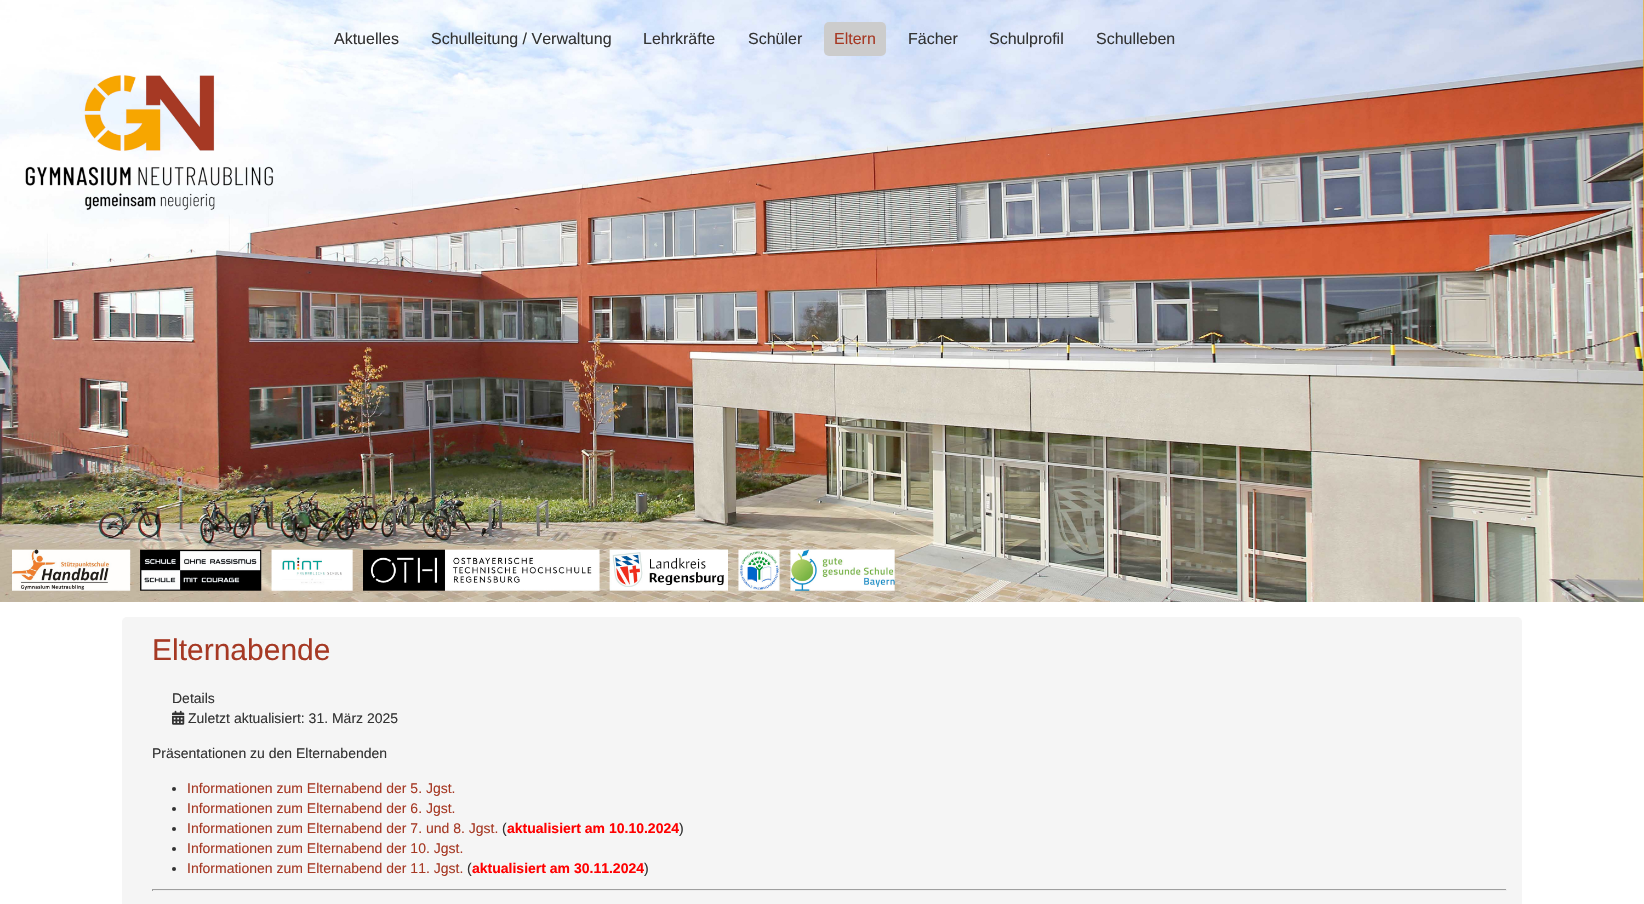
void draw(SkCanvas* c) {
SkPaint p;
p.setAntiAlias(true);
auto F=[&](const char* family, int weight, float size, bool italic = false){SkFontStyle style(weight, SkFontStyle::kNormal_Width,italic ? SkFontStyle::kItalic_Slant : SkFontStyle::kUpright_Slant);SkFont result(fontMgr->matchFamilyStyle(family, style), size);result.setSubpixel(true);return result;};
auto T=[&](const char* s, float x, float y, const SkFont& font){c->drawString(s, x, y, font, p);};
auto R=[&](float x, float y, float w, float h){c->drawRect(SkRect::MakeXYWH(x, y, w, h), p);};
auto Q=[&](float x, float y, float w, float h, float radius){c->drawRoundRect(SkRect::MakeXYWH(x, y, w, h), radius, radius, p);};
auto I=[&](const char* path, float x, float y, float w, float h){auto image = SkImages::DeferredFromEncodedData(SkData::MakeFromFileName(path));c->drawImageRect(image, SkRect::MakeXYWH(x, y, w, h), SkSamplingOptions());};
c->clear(0xffffffff);
I("1.png",0,0,1644,602);
auto f1 = F("Liberation Sans",400,16);
p.setColor(0xff333333);
T("Aktuelles",334,44,f1);
T("Schulleitung / Verwaltung",431,44,f1);
T("Lehrkräfte",643,44,f1);
T("Schüler",748,44,f1);
p.setColor(0xffcccccc);
Q(824,22,62,34,5);
p.setColor(0xffa63924);
T("Eltern",834,44,f1);
p.setColor(0xff333333);
T("Fächer",908,44,f1);
T("Schulprofil",989,44,f1);
T("Schulleben",1096,44,f1);
p.setColor(0xfff5f5f5);
Q(122,617,1400,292,5);
auto f2 = F("Liberation Sans",400,30);
p.setColor(0xffa63924);
T("Elternabende",152,660,f2);
auto f3 = F("Liberation Sans",400,14);
p.setColor(0xff333333);
T("Details",172,703,f3);
I("2.png",172,710,13,15);
T("Zuletzt aktualisiert: 31. März 2025",188,723,f3);
T("Präsentationen zu den Elternabenden",152,758,f3);
c->drawCircle(174,789,2,p);
p.setColor(0xffa63924);
T("Informationen zum Elternabend der 5. Jgst.",187,793,f3);
p.setColor(0xff333333);
c->drawCircle(174,809,2,p);
p.setColor(0xffa63924);
T("Informationen zum Elternabend der 6. Jgst.",187,813,f3);
p.setColor(0xff333333);
c->drawCircle(174,829,2,p);
p.setColor(0xffa63924);
T("Informationen zum Elternabend der 7. und 8. Jgst.",187,833,f3);
p.setColor(0xff333333);
T("(",502,833,f3);
auto f4 = F("Liberation Sans",700,14);
p.setColor(0xffff0000);
T("aktualisiert am 10.10.2024",507,833,f4);
p.setColor(0xff333333);
T(")",679,833,f3);
c->drawCircle(174,849,2,p);
p.setColor(0xffa63924);
T("Informationen zum Elternabend der 10. Jgst.",187,853,f3);
p.setColor(0xff333333);
c->drawCircle(174,869,2,p);
p.setColor(0xffa63924);
T("Informationen zum Elternabend der 11. Jgst.",187,873,f3);
p.setColor(0xff333333);
T("(",467,873,f3);
p.setColor(0xffff0000);
T("aktualisiert am 30.11.2024",472,873,f4);
p.setColor(0xff333333);
T(")",644,873,f3);
p.setColor(0xff9f9f9f);
R(152,889,1355,1);
p.setColor(0xffeeeeee);
R(1506,889,1,2);
R(152,890,1355,1);
p.setColor(0xff9f9f9f);
R(152,889,1,2);
}
